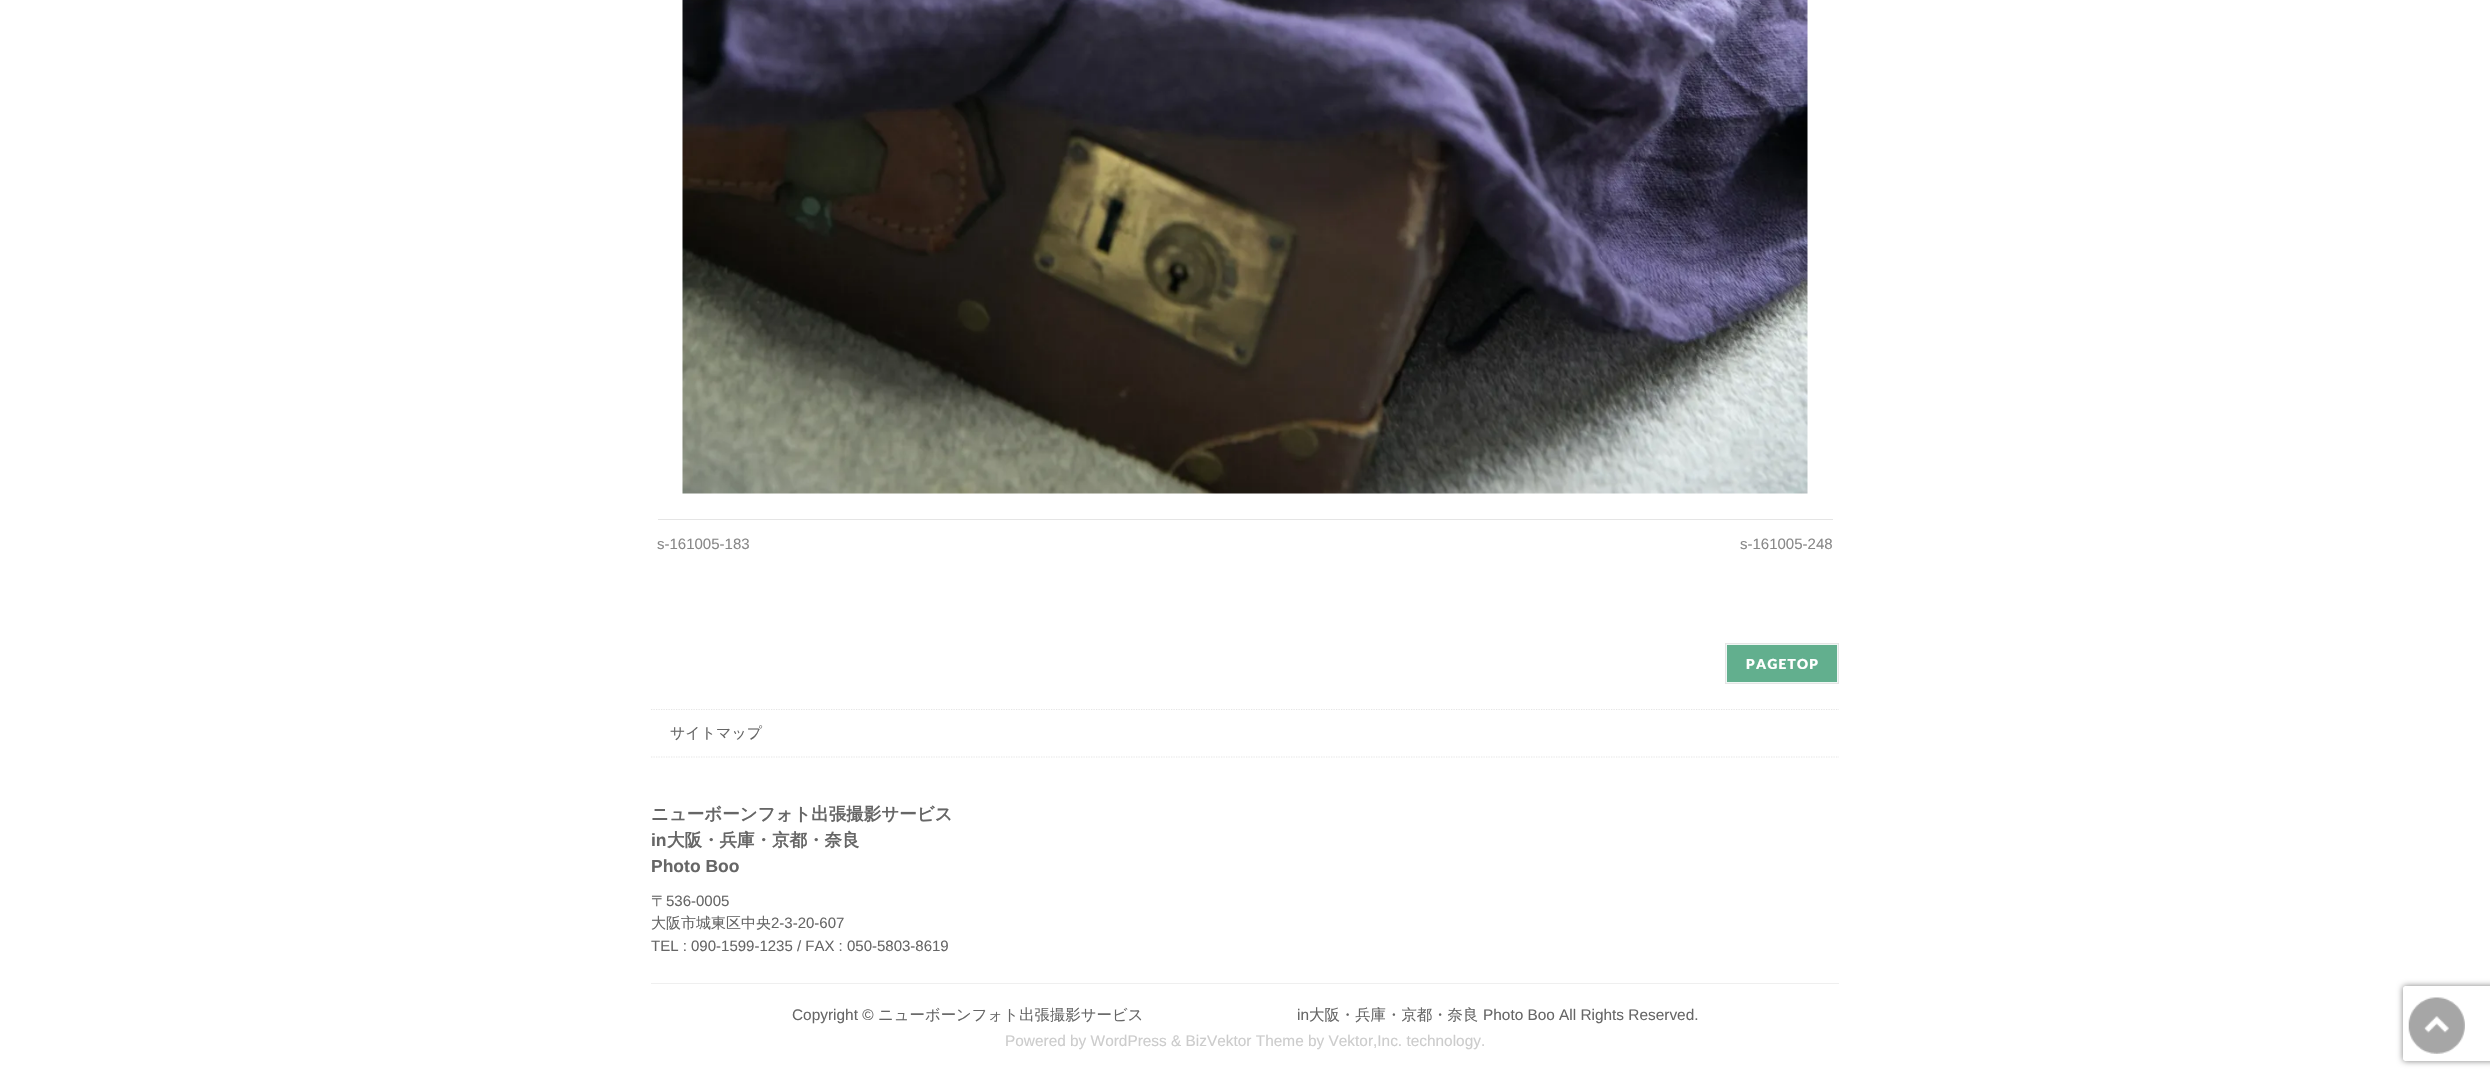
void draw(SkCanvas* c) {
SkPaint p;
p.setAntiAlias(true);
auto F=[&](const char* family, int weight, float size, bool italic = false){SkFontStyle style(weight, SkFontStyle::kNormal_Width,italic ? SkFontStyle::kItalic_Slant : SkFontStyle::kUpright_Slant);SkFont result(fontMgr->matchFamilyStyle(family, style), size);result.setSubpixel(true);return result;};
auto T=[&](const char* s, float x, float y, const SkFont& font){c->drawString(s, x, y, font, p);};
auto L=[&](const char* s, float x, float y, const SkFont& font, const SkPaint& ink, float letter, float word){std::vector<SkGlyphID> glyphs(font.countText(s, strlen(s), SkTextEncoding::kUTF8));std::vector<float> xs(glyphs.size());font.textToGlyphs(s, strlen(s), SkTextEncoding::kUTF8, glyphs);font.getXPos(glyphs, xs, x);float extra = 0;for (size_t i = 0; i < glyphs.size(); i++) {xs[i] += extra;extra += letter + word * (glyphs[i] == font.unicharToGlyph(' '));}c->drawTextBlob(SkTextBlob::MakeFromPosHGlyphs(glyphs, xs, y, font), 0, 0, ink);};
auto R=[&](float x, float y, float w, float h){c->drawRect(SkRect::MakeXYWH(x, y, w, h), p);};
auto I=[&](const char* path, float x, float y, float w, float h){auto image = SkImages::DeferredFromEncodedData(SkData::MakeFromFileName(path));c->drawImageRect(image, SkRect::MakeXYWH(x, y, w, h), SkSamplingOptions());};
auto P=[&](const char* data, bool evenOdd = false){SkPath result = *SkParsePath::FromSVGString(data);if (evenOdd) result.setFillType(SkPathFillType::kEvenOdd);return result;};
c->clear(0xffffffff);
I("1.png",682,0,1126,494);
p.setColor(0xffe5e5e5);
R(658,519,1175,1);
auto f1 = F("Liberation Sans",400,15);
p.setColor(0xff888888);
T("s-161005-183",657,549,f1);
T("s-161005-248",1740,549,f1);
p.setColor(0xff62af8e);
c->drawRect(SkRect::MakeXYWH(1726.5,644.5,111,38),p);
p.setStroke(true);
p.setStrokeWidth(1);
p.setColor(0xffeff7f4);
c->drawRect(SkRect::MakeXYWH(1726.5,644.5,111,38),p);
p.setColor(0xffe5e5e5);
c->drawRect(SkRect::MakeXYWH(1725.5,643.5,113,40),p);
auto f2 = F("Lato",900,13.75);
p.setStroke(false);
p.setColor(0xffffffff);
L("PAGETOP",1746,669,f2,p,1.25,0);
c->save();
c->clipRect(SkRect::MakeXYWH(0,709,2490,61));
p.setStroke(true);
p.setStrokeWidth(1.2);
p.setColor(0xffe5e5e5);
p.setPathEffect(SkDashPathEffect::Make({{1.25f,1.25f}}, 0));
c->drawPath(P("M651 709.5h1188"),p);
p.setPathEffect(nullptr);
c->restore();
p.setPathEffect(SkDashPathEffect::Make({{1.25f,1.25f}}, 0));
c->drawPath(P("M651 757h1188"),p);
p.setPathEffect(nullptr);
auto f3 = F("WenQuanYi Zen Hei",500,15);
p.setStroke(false);
p.setColor(0xff666666);
T("サイトマップ",670,738,f3);
auto f4 = F("WenQuanYi Zen Hei",700,17.5);
T("ニューボーンフォト出張撮影サービス",651,820,f4);
auto f5 = F("Liberation Sans",700,17.5);
T("in",651,846,f5);
T("大阪・兵庫・京都・奈良",667,846,f4);
T("Photo Boo",651,872,f5);
T("〒",651,906,f3);
T("536-0005",666,906,f1);
T("大阪市城東区中央",651,928,f3);
T("2-3-20-607",771,928,f1);
T("TEL : 090-1599-1235 / FAX : 050-5803-8619",651,951,f1);
p.setColor(0xffefefef);
R(651,983,1188,1);
auto f6 = F("Liberation Sans",400,15.4);
p.setColor(0xff666666);
T("Copyright ©",792,1020,f6);
auto f7 = F("WenQuanYi Zen Hei",500,15.4);
T("ニューボーンフォト出張撮影サービス",878,1020,f7);
T("in",1297,1020,f6);
T("大阪・兵庫・京都・奈良",1309,1020,f7);
T("Photo Boo",1483,1020,f6);
T("All Rights Reserved.",1559,1020,f6);
p.setColor(0xffcccccc);
T("Powered by WordPress & BizVektor Theme by Vektor,Inc. technology.",1005,1046,f6);
c->save();
c->clipPath(P("M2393 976h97v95h-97zm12.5 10h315c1.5 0 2.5 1 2.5 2.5v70c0 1.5-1 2.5-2.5 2.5h-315c-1.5 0-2.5-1-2.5-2.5v-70c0-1.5 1-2.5 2.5-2.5z",true),true);
p.setColor(0xff808080);
p.setMaskFilter(SkMaskFilter::MakeBlur(kNormal_SkBlurStyle, 3));
c->drawRoundRect(SkRect::MakeXYWH(2403,986,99,75),2.5,2.5,p);
p.setMaskFilter(nullptr);
c->restore();
I("2.png",2408,997,57,57);
}
